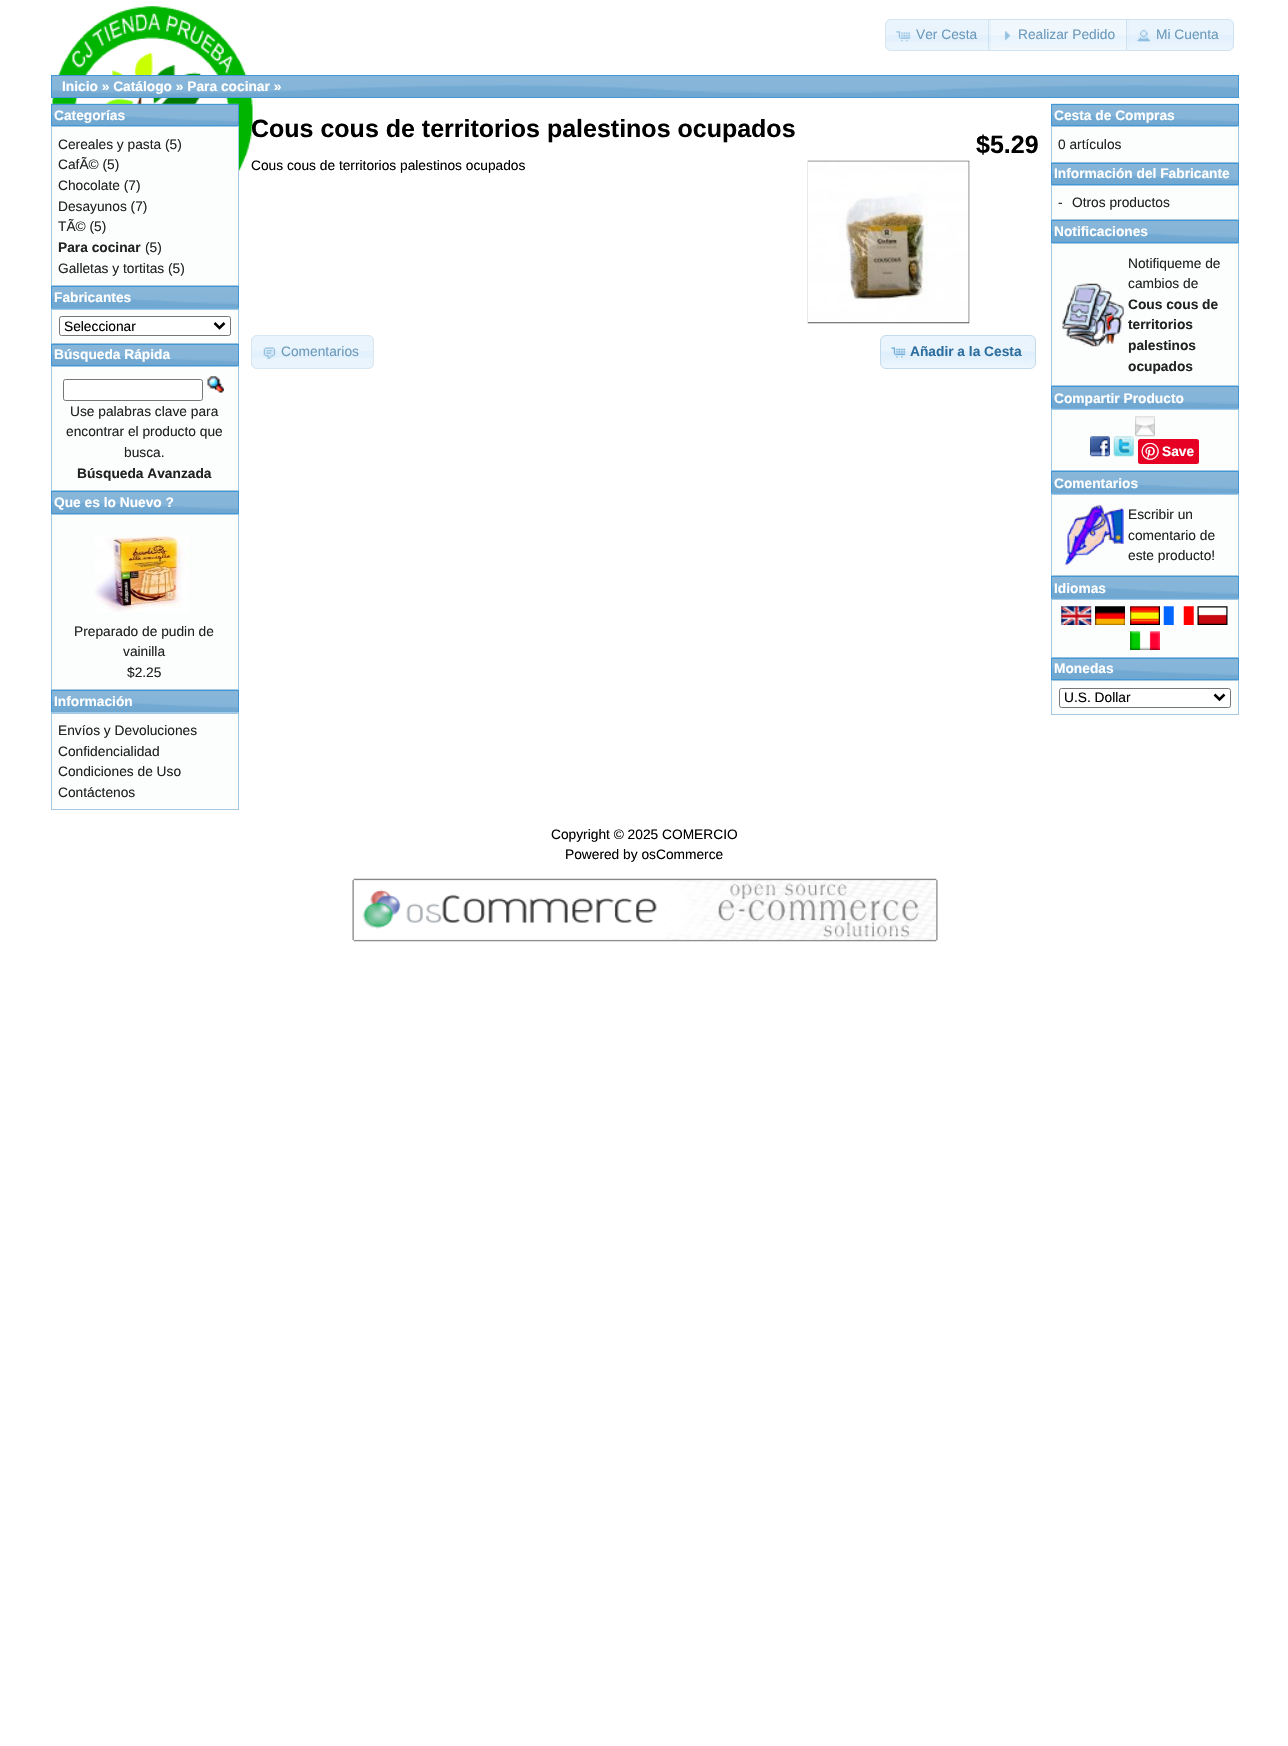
void draw(SkCanvas* c) {
SkPaint p;
p.setAntiAlias(true);
auto F=[&](const char* family, int weight, float size, bool italic = false){SkFontStyle style(weight, SkFontStyle::kNormal_Width,italic ? SkFontStyle::kItalic_Slant : SkFontStyle::kUpright_Slant);SkFont result(fontMgr->matchFamilyStyle(family, style), size);result.setSubpixel(true);return result;};
auto T=[&](const char* s, float x, float y, const SkFont& font){c->drawString(s, x, y, font, p);};
auto R=[&](float x, float y, float w, float h){c->drawRect(SkRect::MakeXYWH(x, y, w, h), p);};
auto Q=[&](float x, float y, float w, float h, float radius){c->drawRoundRect(SkRect::MakeXYWH(x, y, w, h), radius, radius, p);};
auto I=[&](const char* path, float x, float y, float w, float h){auto image = SkImages::DeferredFromEncodedData(SkData::MakeFromFileName(path));c->drawImageRect(image, SkRect::MakeXYWH(x, y, w, h), SkSamplingOptions());};
auto P=[&](const char* data, bool evenOdd = false){SkPath result = *SkParsePath::FromSVGString(data);if (evenOdd) result.setFillType(SkPathFillType::kEvenOdd);return result;};
c->clear(0xffffffff);
I("1.png",51,6,202,166);
p.setColor(0xffe9f4fd);
c->drawPath(P("M891 19h100v32h-100c-3.5 0-6-2.5-6-6v-20c0-3.5 2.5-6 6-6z"),p);
I("2.png",885,19,105,23);
p.setStroke(true);
p.setStrokeWidth(1);
p.setColor(0xffd6e6f2);
c->drawPath(P("M891 19.5h99.5v31h-99.5c-3 0-5.5-2.5-5.5-5.5v-20c0-3 2.5-5.5 5.5-5.5z"),p);
I("3.png",896,31,15,11);
auto f1 = F("Liberation Sans",400,13.75);
p.setStroke(false);
p.setColor(0xff6d9abb);
T("Ver Cesta",916,39,f1);
I("4.png",987,18,143,33);
p.setStroke(true);
p.setColor(0xb3c5dbec);
c->drawRect(SkRect::MakeXYWH(988.5,19.5,141,31),p);
I("5.png",1004,31,7,10);
p.setStroke(false);
p.setColor(0xff6d9abb);
T("Realizar Pedido",1018,39,f1);
p.setColor(0xb3dfeffc);
c->drawPath(P("M1126 19h102c3.5 0 6 2.5 6 6v20c0 3.5-2.5 6-6 6h-102z"),p);
I("6.png",1126,19,108,32);
p.setStroke(true);
p.setColor(0xb3c5dbec);
c->drawPath(P("M1126.5 19.5h101.5c3 0 5.5 2.5 5.5 5.5v20c0 3-2.5 5.5-5.5 5.5h-101.5z"),p);
I("7.png",1137,29,14,13);
p.setStroke(false);
p.setColor(0xff6d9abb);
T("Mi Cuenta",1156,39,f1);
I("8.png",52,76,1186,21);
p.setStroke(true);
p.setColor(0xff4297d7);
c->drawRect(SkRect::MakeXYWH(51.5,75.5,1187,22),p);
auto f2 = F("Liberation Sans",700,13.75);
p.setStroke(false);
p.setColor(0xffffffff);
T("Inicio » Catálogo » Para cocinar »",62,91,f2);
I("9.png",51,103,188,22);
p.setStroke(true);
p.setColor(0xff4297d7);
c->drawRect(SkRect::MakeXYWH(51.5,104.5,187,21),p);
p.setStroke(false);
p.setColor(0xffffffff);
T("Categorías",54,120,f2);
p.setColor(0xfffcfdfd);
c->drawRect(SkRect::MakeXYWH(51.5,126.5,187,159),p);
p.setStroke(true);
p.setColor(0xffa6c9e2);
c->drawRect(SkRect::MakeXYWH(51.5,126.5,187,159),p);
p.setStroke(false);
p.setColor(0xff222222);
T("Cereales y pasta (5)",58,149,f1);
T("CafÃ© (5)",58,169,f1);
T("Chocolate (7)",58,190,f1);
T("Desayunos (7)",58,211,f1);
T("TÃ© (5)",58,231,f1);
T("Para cocinar",58,252,f2);
T("(5)",145,252,f1);
T("Galletas y tortitas (5)",58,273,f1);
I("10.png",52,287,186,21);
p.setStroke(true);
p.setColor(0xff4297d7);
c->drawRect(SkRect::MakeXYWH(51.5,286.5,187,22),p);
p.setStroke(false);
p.setColor(0xffffffff);
T("Fabricantes",54,302,f2);
p.setColor(0xfffcfdfd);
c->drawRect(SkRect::MakeXYWH(51.5,309.5,187,34),p);
p.setStroke(true);
p.setColor(0xffa6c9e2);
c->drawRect(SkRect::MakeXYWH(51.5,309.5,187,34),p);
I("11.png",51,308,188,1);
p.setStroke(false);
p.setColor(0xffffffff);
c->drawRoundRect(SkRect::MakeXYWH(59.5,316.5,171,19),2,2,p);
p.setStroke(true);
p.setColor(0xff767676);
c->drawRoundRect(SkRect::MakeXYWH(59.5,316.5,171,19),2,2,p);
p.setStrokeWidth(2.5);
p.setColor(0xff000000);
c->drawPath(P("M214.5 323l5 5l5-5"),p);
p.setStroke(false);
T("Seleccionar",64,331,f1);
I("12.png",51,343,188,22);
p.setStroke(true);
p.setStrokeWidth(1);
p.setColor(0xff4297d7);
c->drawRect(SkRect::MakeXYWH(51.5,344.5,187,21),p);
p.setStroke(false);
p.setColor(0xffffffff);
T("Búsqueda Rápida",54,359,f2);
p.setColor(0xfffcfdfd);
c->drawRect(SkRect::MakeXYWH(51.5,366.5,187,124),p);
p.setStroke(true);
p.setColor(0xffa6c9e2);
c->drawRect(SkRect::MakeXYWH(51.5,366.5,187,124),p);
p.setStroke(false);
p.setColor(0xffffffff);
c->drawRoundRect(SkRect::MakeXYWH(63.5,379.5,139,21),2,2,p);
p.setStroke(true);
p.setColor(0xff767676);
c->drawRoundRect(SkRect::MakeXYWH(63.5,379.5,139,21),2,2,p);
I("13.png",207,376,17,17);
p.setStroke(false);
p.setColor(0xff222222);
T("Use palabras clave para",70,416,f1);
T("encontrar el producto que",66,436,f1);
T("busca.",124,457,f1);
T("Búsqueda Avanzada",77,478,f2);
I("14.png",52,492,186,21);
p.setStroke(true);
p.setColor(0xff4297d7);
c->drawRect(SkRect::MakeXYWH(51.5,491.5,187,22),p);
p.setStroke(false);
p.setColor(0xffffffff);
T("Que es lo Nuevo ?",54,507,f2);
p.setColor(0xfffcfdfd);
c->drawRect(SkRect::MakeXYWH(51.5,514.5,187,175),p);
p.setStroke(true);
p.setColor(0xffa6c9e2);
c->drawRect(SkRect::MakeXYWH(51.5,514.5,187,175),p);
I("15.png",95,536,94,76);
p.setStroke(false);
p.setColor(0xff222222);
T("Preparado de pudin de",74,636,f1);
T("vainilla",123,656,f1);
T("$2.25",127,677,f1);
I("16.png",52,691,186,21);
p.setStroke(true);
p.setColor(0xff4297d7);
c->drawRect(SkRect::MakeXYWH(51.5,690.5,187,22),p);
p.setStroke(false);
p.setColor(0xffffffff);
T("Información",54,706,f2);
p.setColor(0xfffcfdfd);
c->drawRect(SkRect::MakeXYWH(51.5,713.5,187,96),p);
p.setStroke(true);
p.setColor(0xffa6c9e2);
c->drawRect(SkRect::MakeXYWH(51.5,713.5,187,96),p);
I("17.png",51,712,188,1);
p.setStroke(false);
p.setColor(0xff222222);
T("Envíos y Devoluciones",58,735,f1);
T("Confidencialidad",58,756,f1);
T("Condiciones de Uso",58,776,f1);
T("Contáctenos",58,797,f1);
auto f3 = F("Liberation Sans",700,25);
p.setColor(0xff000000);
T("Cous cous de territorios palestinos ocupados",251,137,f3);
T("$5.29",976,153,f3);
T("Cous cous de territorios palestinos ocupados",251,170,f1);
p.setMaskFilter(SkMaskFilter::MakeBlur(kNormal_SkBlurStyle, .5));
c->drawRect(SkRect::MakeXYWH(808,161,161,162),p);
p.setMaskFilter(nullptr);
I("18.png",807,161,162,162);
p.setColor(0xffe9f4fd);
Q(251,335,123,34,6);
p.setColor(0xffe2f1fc);
R(251,351,123,7);
p.setStroke(true);
p.setColor(0xffd6e6f2);
c->drawRoundRect(SkRect::MakeXYWH(251.5,335.5,122,33),5.5,5.5,p);
I("19.png",263,347,13,12);
p.setStroke(false);
p.setColor(0xff6d9abb);
T("Comentarios",281,356,f1);
I("20.png",880,335,156,34);
p.setStroke(true);
p.setColor(0xffc5dbec);
c->drawRoundRect(SkRect::MakeXYWH(880.5,335.5,155,33),5.5,5.5,p);
I("21.png",891,347,15,11);
p.setStroke(false);
p.setColor(0xff2e6e9e);
T("Añadir a la Cesta",910,356,f2);
I("22.png",1051,103,188,22);
p.setStroke(true);
p.setColor(0xff4297d7);
c->drawRect(SkRect::MakeXYWH(1051.5,104.5,187,21),p);
p.setStroke(false);
p.setColor(0xffffffff);
T("Cesta de Compras",1054,120,f2);
p.setColor(0xfffcfdfd);
c->drawRect(SkRect::MakeXYWH(1051.5,126.5,187,36),p);
p.setStroke(true);
p.setColor(0xffa6c9e2);
c->drawRect(SkRect::MakeXYWH(1051.5,126.5,187,36),p);
p.setStroke(false);
p.setColor(0xff222222);
T("0 artículos",1058,149,f1);
I("23.png",1051,162,188,22);
p.setStroke(true);
p.setColor(0xff4297d7);
c->drawRect(SkRect::MakeXYWH(1051.5,163.5,187,21),p);
p.setStroke(false);
p.setColor(0xffffffff);
T("Información del Fabricante",1054,178,f2);
p.setColor(0xfffcfdfd);
c->drawRect(SkRect::MakeXYWH(1051.5,185.5,187,34),p);
p.setStroke(true);
p.setColor(0xffa6c9e2);
c->drawRect(SkRect::MakeXYWH(1051.5,185.5,187,34),p);
p.setStroke(false);
p.setColor(0xff222222);
T("-",1058,207,f1);
T("Otros productos",1072,207,f1);
I("16.png",1052,221,186,21);
p.setStroke(true);
p.setColor(0xff4297d7);
c->drawRect(SkRect::MakeXYWH(1051.5,220.5,187,22),p);
p.setStroke(false);
p.setColor(0xffffffff);
T("Notificaciones",1054,236,f2);
p.setColor(0xfffcfdfd);
c->drawRect(SkRect::MakeXYWH(1051.5,243.5,187,142),p);
p.setStroke(true);
p.setColor(0xffa6c9e2);
c->drawRect(SkRect::MakeXYWH(1051.5,243.5,187,142),p);
I("24.png",1062,283,62,64);
p.setStroke(false);
p.setColor(0xff222222);
T("Notifiqueme de",1128,268,f1);
T("cambios de",1128,288,f1);
T("Cous cous de",1128,309,f2);
T("territorios",1128,329,f2);
T("palestinos",1128,350,f2);
T("ocupados",1128,371,f2);
I("14.png",1052,387,186,21);
p.setStroke(true);
p.setColor(0xff4297d7);
c->drawRect(SkRect::MakeXYWH(1051.5,386.5,187,22),p);
p.setStroke(false);
p.setColor(0xffffffff);
T("Compartir Producto",1054,403,f2);
p.setColor(0xfffcfdfd);
c->drawRect(SkRect::MakeXYWH(1051.5,409.5,187,61),p);
p.setStroke(true);
p.setColor(0xffa6c9e2);
c->drawRect(SkRect::MakeXYWH(1051.5,409.5,187,61),p);
I("25.png",1051,408,188,1);
I("26.png",1135,416,20,21);
I("27.png",1090,436,20,21);
I("28.png",1113,436,21,21);
p.setStroke(false);
p.setColor(0xffe60023);
Q(1138,439,61,25,2.5);
I("29.png",1141,443,18,17);
p.setColor(0xffffffff);
T("Save",1162,456,f2);
I("14.png",1052,472,186,21);
p.setStroke(true);
p.setColor(0xff4297d7);
c->drawRect(SkRect::MakeXYWH(1051.5,471.5,187,22),p);
p.setStroke(false);
p.setColor(0xffffffff);
T("Comentarios",1054,488,f2);
p.setColor(0xfffcfdfd);
c->drawRect(SkRect::MakeXYWH(1051.5,494.5,187,81),p);
p.setStroke(true);
p.setColor(0xffa6c9e2);
c->drawRect(SkRect::MakeXYWH(1051.5,494.5,187,81),p);
I("11.png",1051,493,188,1);
I("30.png",1064,504,60,62);
p.setStroke(false);
p.setColor(0xff222222);
T("Escribir un",1128,519,f1);
T("comentario de",1128,540,f1);
T("este producto!",1128,560,f1);
I("31.png",1052,577,186,21);
p.setStroke(true);
p.setColor(0xff4297d7);
c->drawRect(SkRect::MakeXYWH(1051.5,576.5,187,22),p);
p.setStroke(false);
p.setColor(0xffffffff);
T("Idiomas",1054,593,f2);
p.setColor(0xfffcfdfd);
c->drawRect(SkRect::MakeXYWH(1051.5,599.5,187,58),p);
p.setStroke(true);
p.setColor(0xffa6c9e2);
c->drawRect(SkRect::MakeXYWH(1051.5,599.5,187,58),p);
I("32.png",1051,598,188,1);
I("33.png",1061,606,31,19);
I("34.png",1095,606,30,19);
I("35.png",1130,606,30,19);
I("36.png",1163,606,31,19);
I("37.png",1197,606,31,19);
I("38.png",1130,631,30,19);
I("23.png",1051,657,188,22);
p.setColor(0xff4297d7);
c->drawRect(SkRect::MakeXYWH(1051.5,658.5,187,21),p);
p.setStroke(false);
p.setColor(0xffffffff);
T("Monedas",1054,673,f2);
p.setColor(0xfffcfdfd);
c->drawRect(SkRect::MakeXYWH(1051.5,680.5,187,34),p);
p.setStroke(true);
p.setColor(0xffa6c9e2);
c->drawRect(SkRect::MakeXYWH(1051.5,680.5,187,34),p);
p.setStroke(false);
p.setColor(0xffffffff);
c->drawRoundRect(SkRect::MakeXYWH(1059.5,688.5,171,19),2,2,p);
p.setStroke(true);
p.setColor(0xff767676);
c->drawRoundRect(SkRect::MakeXYWH(1059.5,688.5,171,19),2,2,p);
p.setStrokeWidth(2.5);
p.setColor(0xff000000);
c->drawPath(P("M1214.5 694.5l5 5l5-5"),p);
p.setStroke(false);
T("U.S. Dollar",1064,702,f1);
T("Copyright © 2025 COMERCIO",551,839,f1);
T("Powered by osCommerce",565,859,f1);
I("39.png",352,878,586,64);
}
